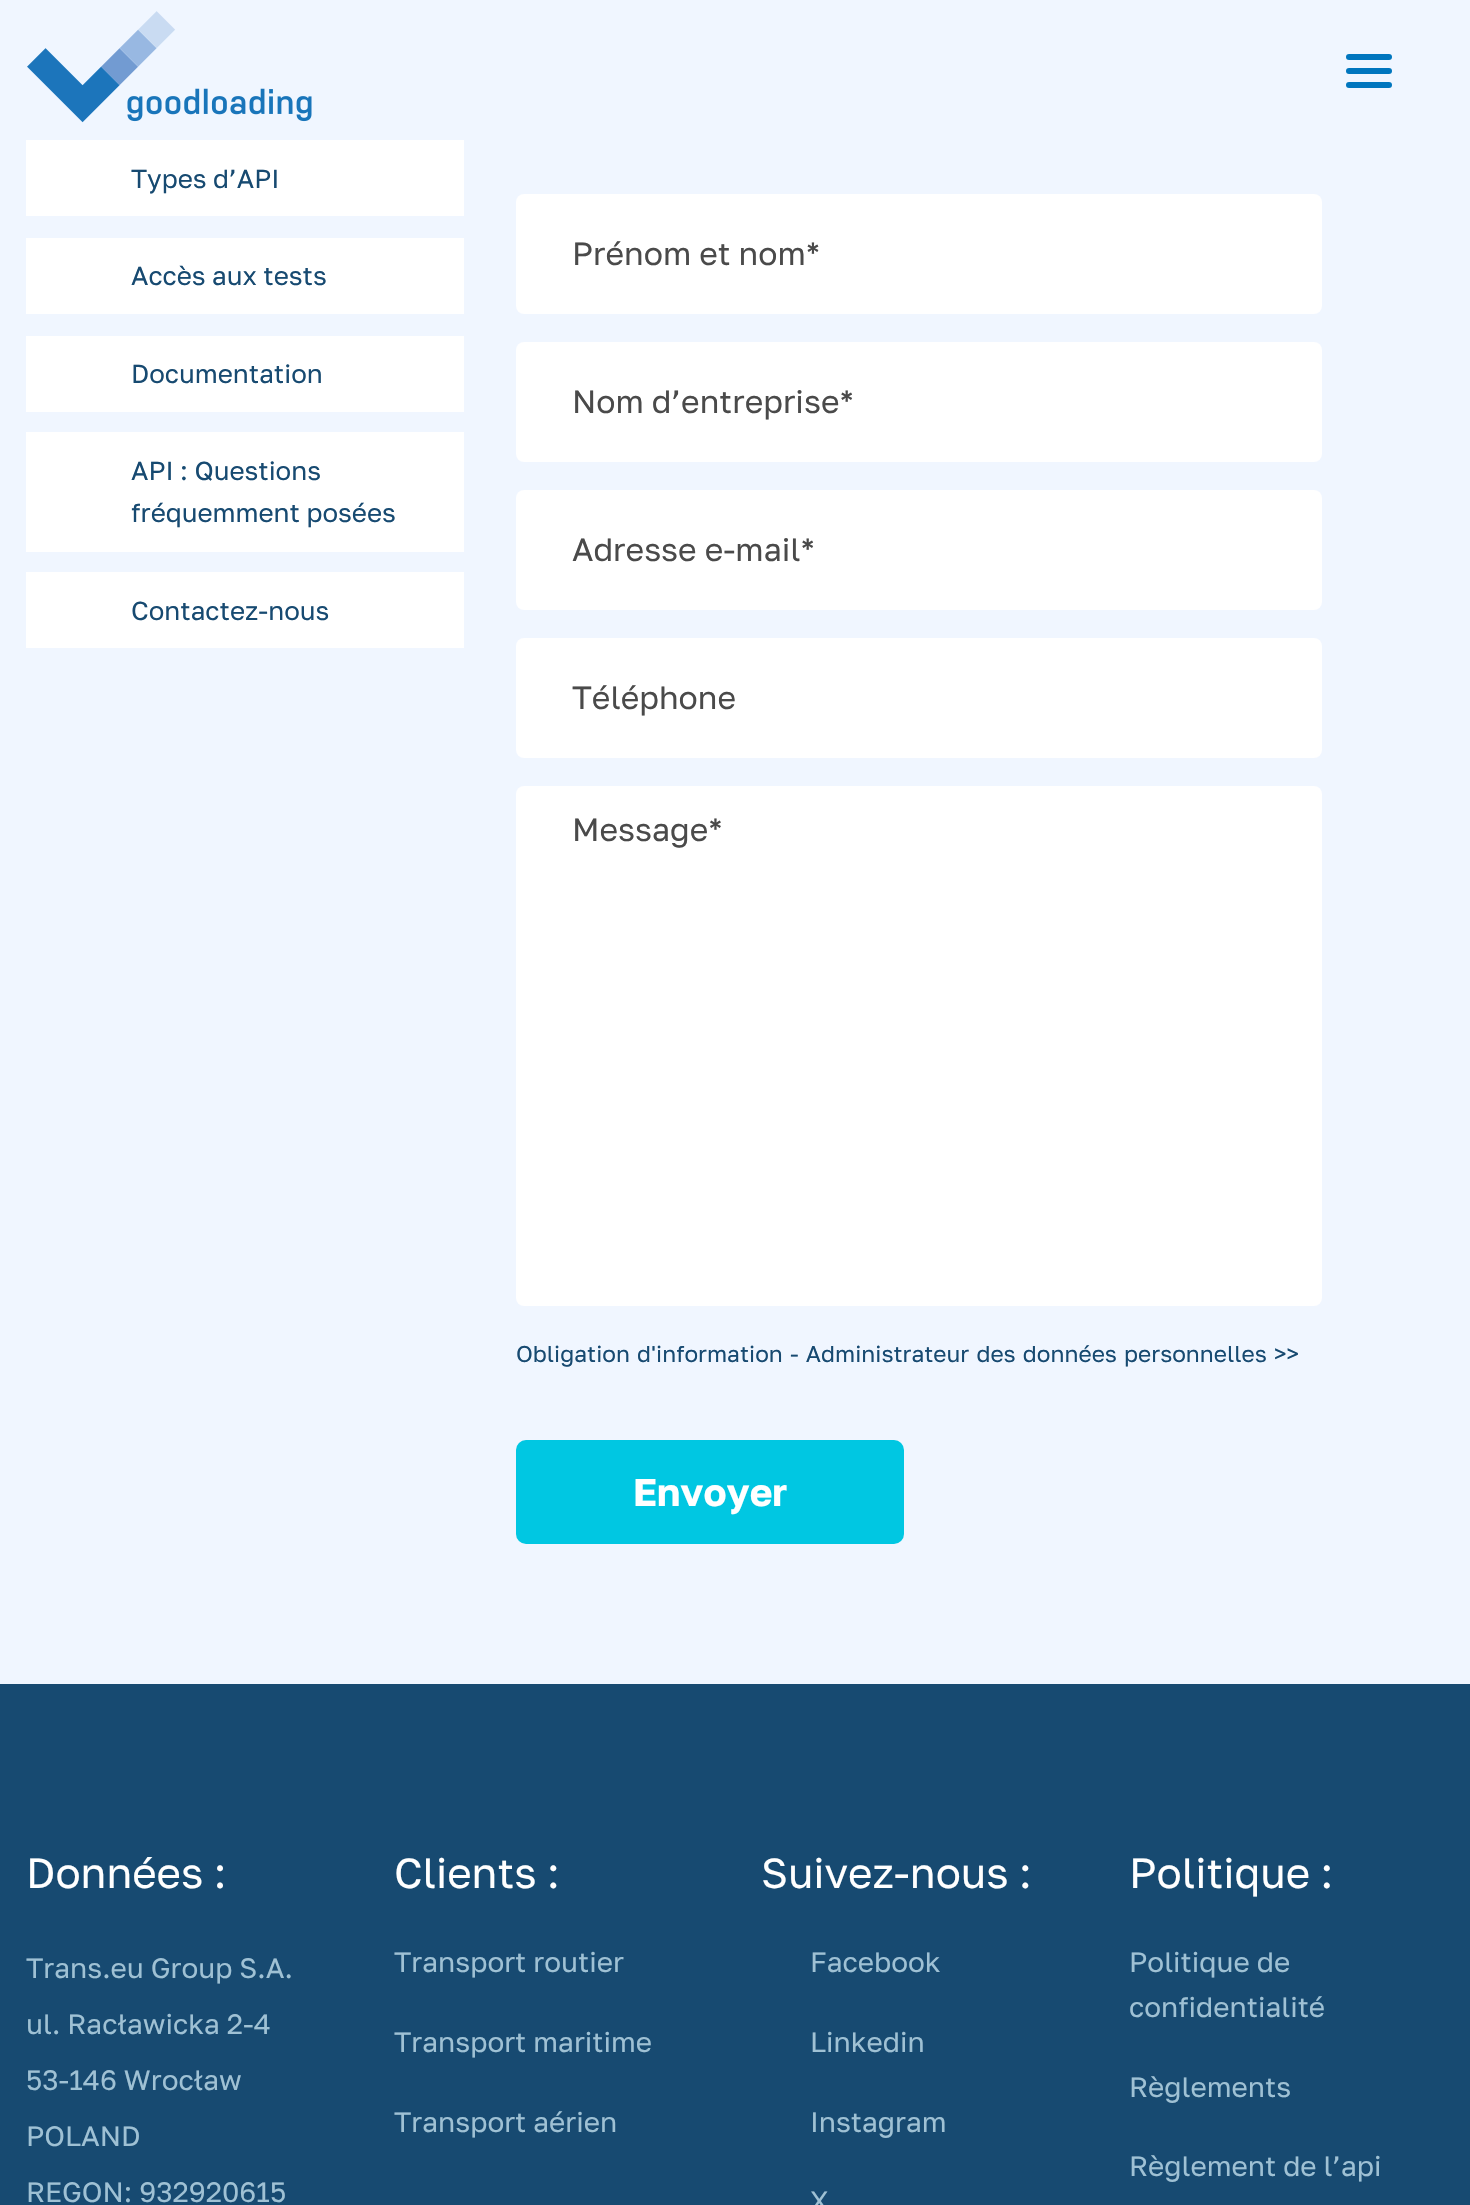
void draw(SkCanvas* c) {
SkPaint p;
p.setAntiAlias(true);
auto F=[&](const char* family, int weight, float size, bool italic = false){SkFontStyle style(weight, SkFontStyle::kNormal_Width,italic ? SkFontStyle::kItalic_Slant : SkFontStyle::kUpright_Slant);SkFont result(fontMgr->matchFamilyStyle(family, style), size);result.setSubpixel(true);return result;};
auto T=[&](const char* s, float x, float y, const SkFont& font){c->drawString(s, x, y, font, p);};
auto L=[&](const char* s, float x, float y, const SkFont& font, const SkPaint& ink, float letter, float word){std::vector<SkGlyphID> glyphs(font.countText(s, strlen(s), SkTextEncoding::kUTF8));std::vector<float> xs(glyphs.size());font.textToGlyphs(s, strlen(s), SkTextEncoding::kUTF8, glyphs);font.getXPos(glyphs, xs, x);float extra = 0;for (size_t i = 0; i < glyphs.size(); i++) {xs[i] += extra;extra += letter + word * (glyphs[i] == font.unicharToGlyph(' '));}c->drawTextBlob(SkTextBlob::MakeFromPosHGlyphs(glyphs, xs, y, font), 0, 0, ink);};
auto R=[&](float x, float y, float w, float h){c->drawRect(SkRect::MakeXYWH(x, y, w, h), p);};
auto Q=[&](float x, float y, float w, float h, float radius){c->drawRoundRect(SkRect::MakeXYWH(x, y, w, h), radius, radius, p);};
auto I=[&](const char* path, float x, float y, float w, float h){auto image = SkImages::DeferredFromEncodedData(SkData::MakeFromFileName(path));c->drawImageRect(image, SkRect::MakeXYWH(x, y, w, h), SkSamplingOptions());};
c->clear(0xfff0f6ff);
I("1.png",27,11,285,112);
p.setColor(0xff0076be);
Q(1346,54,46,6,3);
Q(1346,68,46,6,3);
Q(1346,82,46,6,3);
p.setColor(0xffffffff);
R(26,140,438,76);
auto f1 = F("Golos Text",400,26);
p.setColor(0xff174a71);
T("Types d’API",131,188,f1);
p.setColor(0xffffffff);
R(26,238,438,76);
p.setColor(0xff174a71);
T("Accès aux tests",131,285,f1);
p.setColor(0xffffffff);
R(26,336,438,76);
p.setColor(0xff174a71);
T("Documentation",131,383,f1);
p.setColor(0xffffffff);
R(26,432,438,120);
p.setColor(0xff174a71);
T("API : Questions",131,480,f1);
T("fréquemment posées",131,522,f1);
p.setColor(0xffffffff);
R(26,572,438,76);
p.setColor(0xff174a71);
T("Contactez-nous",131,620,f1);
p.setColor(0xffffffff);
Q(516,194,806,120,8);
auto f2 = F("Golos Text",400,32);
p.setColor(0xff4a4a4a);
T("Prénom et nom*",572,265,f2);
p.setColor(0xffffffff);
Q(516,342,806,120,8);
p.setColor(0xff4a4a4a);
T("Nom d’entreprise*",572,413,f2);
p.setColor(0xffffffff);
Q(516,490,806,120,8);
p.setColor(0xff4a4a4a);
T("Adresse e-mail*",572,561,f2);
p.setColor(0xffffffff);
Q(516,638,806,120,8);
p.setColor(0xff4a4a4a);
T("Téléphone",572,709,f2);
p.setColor(0xffffffff);
Q(516,786,806,520,8);
p.setColor(0xff4a4a4a);
T("Message*",572,841,f2);
auto f3 = F("Golos Text",400,22.75);
p.setColor(0xff174a71);
L("Obligation d'information - Administrateur des données personnelles >>",516,1362,f3,p,0,1.5);
p.setColor(0xff00c7e2);
Q(516,1440,388,104,10);
auto f4 = F("Golos Text",700,38.5);
p.setColor(0xffffffff);
T("Envoyer",633,1506,f4);
p.setColor(0xff174a71);
R(0,1684,1470,521);
auto f5 = F("Golos Text",400,42);
p.setColor(0xffffffff);
T("Données :",26,1888,f5);
auto f6 = F("Golos Text",400,28);
p.setColor(0xff9fc1d4);
T("Trans.eu Group S.A.",26,1978,f6);
T("ul. Racławicka 2-4",26,2034,f6);
T("53-146 Wrocław",26,2090,f6);
T("POLAND",26,2146,f6);
T("REGON: 932920615",26,2202,f6);
p.setColor(0xffffffff);
T("Clients :",394,1888,f5);
p.setColor(0xff9fc1d4);
T("Transport routier",394,1972,f6);
T("Transport maritime",394,2052,f6);
T("Transport aérien",394,2132,f6);
p.setColor(0xffffffff);
T("Suivez-nous :",761,1888,f5);
p.setColor(0xff9fc1d4);
T("Facebook",810,1972,f6);
T("Linkedin",810,2052,f6);
T("Instagram",810,2132,f6);
T("X",810,2211,f6);
p.setColor(0xffffffff);
T("Politique :",1129,1888,f5);
p.setColor(0xff9fc1d4);
T("Politique de",1129,1972,f6);
T("confidentialité",1129,2017,f6);
T("Règlements",1129,2097,f6);
T("Règlement de l’api",1129,2176,f6);
}
